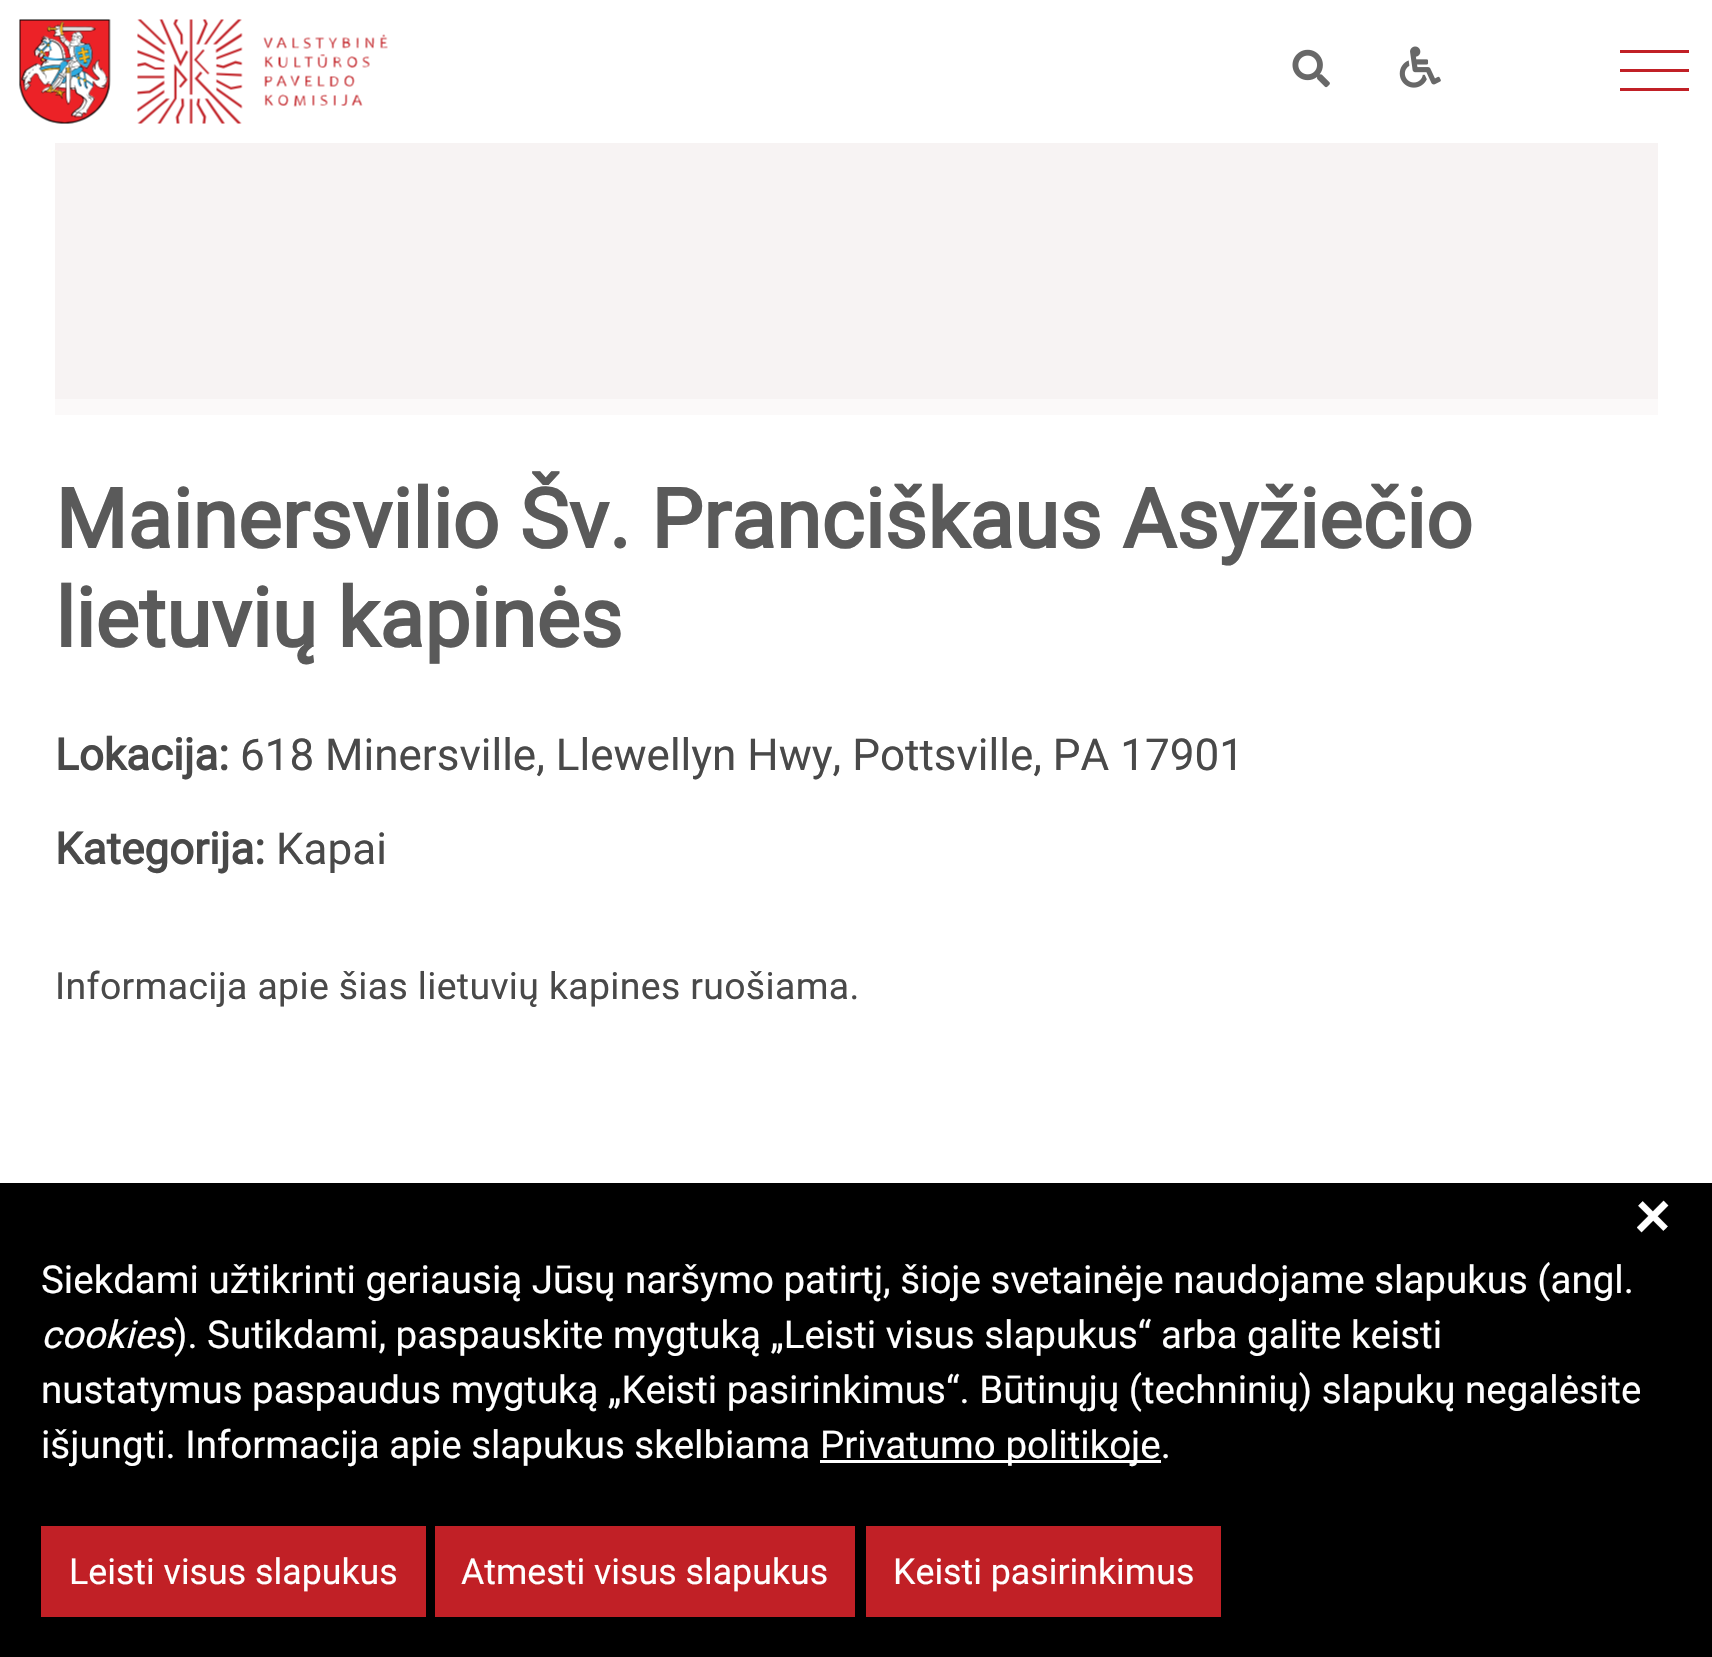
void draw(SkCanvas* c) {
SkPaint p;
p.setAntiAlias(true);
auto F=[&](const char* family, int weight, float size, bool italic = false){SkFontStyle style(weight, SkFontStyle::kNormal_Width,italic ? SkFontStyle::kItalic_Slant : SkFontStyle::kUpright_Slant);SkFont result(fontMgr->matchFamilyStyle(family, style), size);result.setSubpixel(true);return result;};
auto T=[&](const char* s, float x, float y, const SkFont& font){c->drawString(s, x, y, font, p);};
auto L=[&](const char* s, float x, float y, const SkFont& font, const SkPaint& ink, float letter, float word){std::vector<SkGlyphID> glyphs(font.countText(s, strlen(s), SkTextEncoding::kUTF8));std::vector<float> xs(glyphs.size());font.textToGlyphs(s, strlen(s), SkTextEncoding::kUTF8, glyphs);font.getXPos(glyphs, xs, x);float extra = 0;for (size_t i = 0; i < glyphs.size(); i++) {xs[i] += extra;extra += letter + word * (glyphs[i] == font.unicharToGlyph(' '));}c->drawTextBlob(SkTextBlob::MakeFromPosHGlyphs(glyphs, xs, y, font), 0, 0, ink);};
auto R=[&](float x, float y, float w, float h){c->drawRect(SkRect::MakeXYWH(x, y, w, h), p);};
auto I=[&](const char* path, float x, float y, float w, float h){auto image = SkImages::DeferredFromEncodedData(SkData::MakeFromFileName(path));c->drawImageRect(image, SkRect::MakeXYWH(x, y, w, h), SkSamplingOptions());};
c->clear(0xffffffff);
I("1.png",19,19,92,105);
I("2.png",137,19,251,105);
I("3.png",1292,49,38,39);
I("4.png",1399,46,42,42);
p.setColor(0xffc12026);
R(1620,69,69,3);
R(1620,50,69,3);
R(1620,88,69,3);
p.setColor(0xfff7f3f3);
R(55,143,1603,256);
p.setColor(0xfffbf9f9);
R(55,399,1603,16);
auto f1 = F("Roboto",700,82.5);
p.setColor(0xff5a5a5a);
T("Mainersvilio Šv. Pranciškaus Asyžiečio",55,548,f1);
T("lietuvių kapinės",55,647,f1);
auto f2 = F("Roboto",700,44);
p.setColor(0xff494949);
T("Lokacija:",55,770,f2);
auto f3 = F("Roboto",400,44);
T("618 Minersville, Llewellyn Hwy, Pottsville, PA 17901",240,770,f3);
T("Kategorija:",55,864,f2);
T("Kapai",276,864,f3);
auto f4 = F("Roboto",400,37.4);
L("Informacija apie šias lietuvių kapines ruošiama.",55,999,f4,p,.35,0);
p.setColor(0xff000000);
R(0,1183,1712,474);
auto f5 = F("Roboto",400,73);
p.setColor(0xffffffff);
c->save();
c->rotate(45,1621,1219);
T("+",1621,1219,f5);
c->restore();
auto f6 = F("Roboto",400,38.5);
T("Siekdami užtikrinti geriausią Jūsų naršymo patirtį, šioje svetainėje naudojame slapukus (angl.",41,1293,f6);
auto f7 = F("Roboto",400,38.5,true);
T("cookies",41,1348,f7);
T("). Sutikdami, paspauskite mygtuką „Leisti visus slapukus“ arba galite keisti",174,1348,f6);
T("nustatymus paspaudus mygtuką „Keisti pasirinkimus“. Būtinųjų (techninių) slapukų negalėsite",41,1403,f6);
T("išjungti. Informacija apie slapukus skelbiama",41,1458,f6);
R(820,1460,341,3);
T("Privatumo politikoje.",820,1458,f6);
p.setColor(0xffc12026);
R(41,1526,385,91);
auto f8 = F("Roboto",400,35.75);
p.setColor(0xffffffff);
T("Leisti visus slapukus",69,1584,f8);
p.setColor(0xffc12026);
R(435,1526,420,91);
p.setColor(0xffffffff);
T("Atmesti visus slapukus",461,1584,f8);
p.setColor(0xffc12026);
R(866,1526,355,91);
p.setColor(0xffffffff);
T("Keisti pasirinkimus",893,1584,f8);
}
